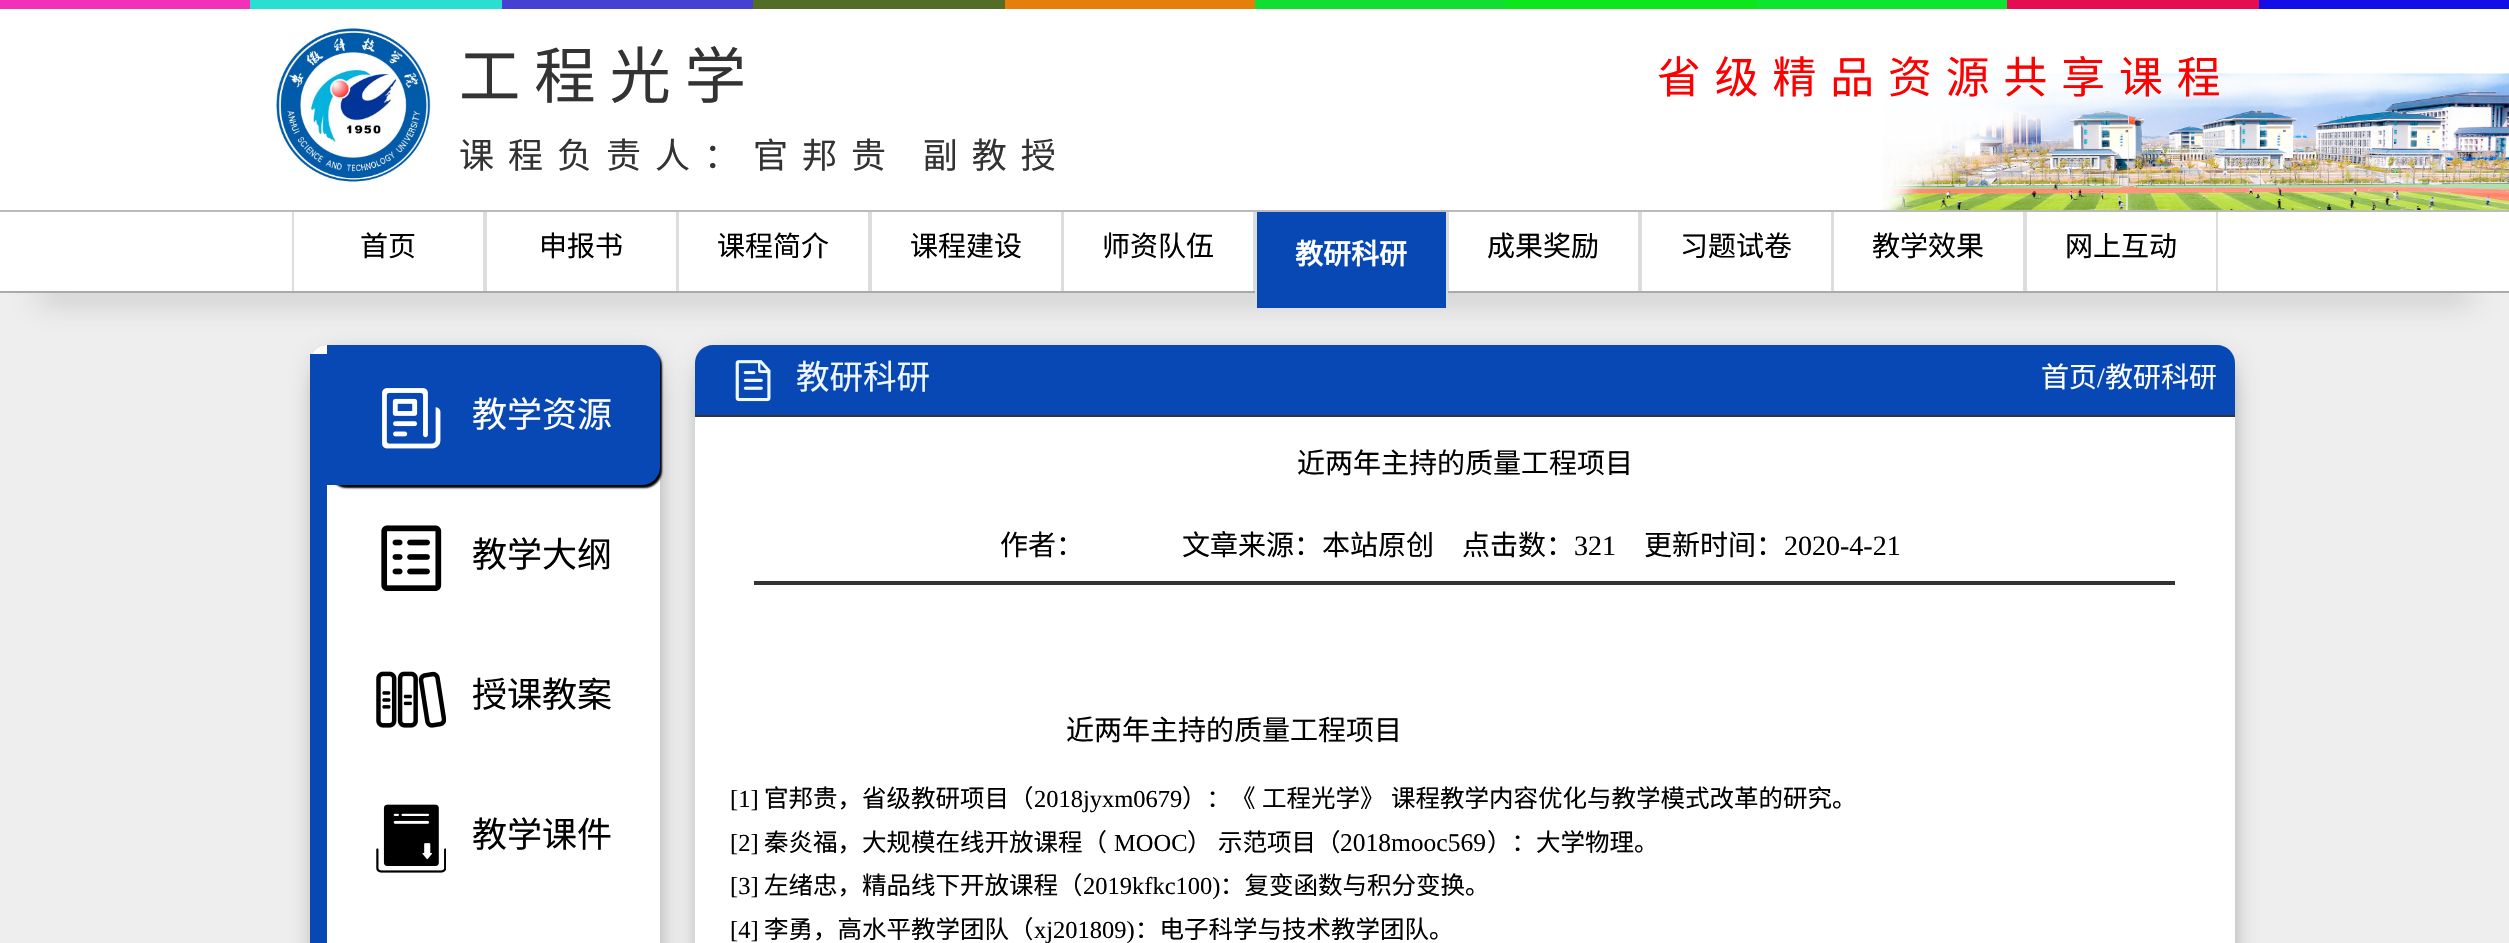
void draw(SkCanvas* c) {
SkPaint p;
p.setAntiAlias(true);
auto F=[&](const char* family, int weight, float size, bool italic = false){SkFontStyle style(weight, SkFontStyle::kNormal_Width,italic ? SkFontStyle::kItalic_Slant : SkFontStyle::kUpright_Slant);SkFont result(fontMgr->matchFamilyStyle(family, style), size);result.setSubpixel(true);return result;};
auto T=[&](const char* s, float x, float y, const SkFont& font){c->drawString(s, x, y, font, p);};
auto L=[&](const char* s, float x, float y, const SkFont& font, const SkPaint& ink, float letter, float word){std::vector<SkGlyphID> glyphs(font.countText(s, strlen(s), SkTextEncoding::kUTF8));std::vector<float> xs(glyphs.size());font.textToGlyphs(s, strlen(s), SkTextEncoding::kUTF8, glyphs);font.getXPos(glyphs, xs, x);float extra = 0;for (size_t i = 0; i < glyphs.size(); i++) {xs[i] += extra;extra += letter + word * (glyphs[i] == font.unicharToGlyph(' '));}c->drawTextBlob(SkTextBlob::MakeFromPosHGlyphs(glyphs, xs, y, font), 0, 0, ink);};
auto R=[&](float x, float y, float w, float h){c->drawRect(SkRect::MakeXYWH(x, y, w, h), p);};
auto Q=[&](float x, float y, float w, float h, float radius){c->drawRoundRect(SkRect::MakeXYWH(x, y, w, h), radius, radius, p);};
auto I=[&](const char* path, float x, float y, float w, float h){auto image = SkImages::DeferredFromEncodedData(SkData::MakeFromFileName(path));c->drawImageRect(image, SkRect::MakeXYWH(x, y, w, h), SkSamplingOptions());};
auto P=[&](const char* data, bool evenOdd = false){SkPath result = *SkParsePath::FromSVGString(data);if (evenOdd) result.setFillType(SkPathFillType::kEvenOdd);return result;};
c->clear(0xffeeeeee);
p.setColor(0xffffffff);
R(0,9,2509,201);
I("1.png",1883,73,626,137);
p.setColor(0xffbbbbbb);
R(0,210,2509,2);
p.setColor(0xfff330b9);
R(0,0,250,9);
p.setColor(0xff2bded2);
R(250,0,252,9);
p.setColor(0xff4440d3);
R(502,0,251,9);
p.setColor(0xff536d26);
R(753,0,252,9);
p.setColor(0xffe67e0c);
R(1005,0,250,9);
p.setColor(0xff11de32);
R(1255,0,250,9);
p.setColor(0xff0ce61a);
R(1505,0,252,9);
p.setColor(0xff0ce630);
R(1757,0,250,9);
p.setColor(0xffe60c54);
R(2007,0,252,9);
p.setColor(0xff130de6);
R(2259,0,250,9);
I("2.png",274,28,158,154);
auto f1 = F("Noto Sans CJK SC",400,61.25);
p.setColor(0xff333333);
L("工程光学",459,98,f1,p,14,0);
auto f2 = F("Noto Sans CJK SC",400,35);
L("课程负责人：官邦贵 副教授",459,168,f2,p,14,1);
auto f3 = F("Noto Sans CJK SC",400,43.75);
p.setColor(0xffff0000);
L("省级精品资源共享课程",1657,93,f3,p,14,0);
p.setColor(0xff333333);
p.setMaskFilter(SkMaskFilter::MakeBlur(kNormal_SkBlurStyle, 15));
c->drawRect(SkRect::MakeXYWH(39,292,2432,4),p);
p.setMaskFilter(nullptr);
p.setColor(0xffffffff);
R(0,212,2509,79);
p.setColor(0xffaaaaaa);
R(0,291,2509,2);
p.setColor(0xffdddddd);
R(483,212,4,79);
R(292,212,2,79);
auto f4 = F("Noto Sans CJK SC",400,28);
p.setColor(0xff000000);
T("首页",360,256,f4);
p.setColor(0xffdddddd);
R(676,212,3,79);
p.setColor(0xff000000);
T("申报书",539,256,f4);
p.setColor(0xffdddddd);
R(868,212,4,79);
p.setColor(0xff000000);
T("课程简介",717,256,f4);
p.setColor(0xffdddddd);
R(1061,212,3,79);
p.setColor(0xff000000);
T("课程建设",910,256,f4);
p.setColor(0xffdddddd);
R(1253,212,2,79);
p.setColor(0xff000000);
T("师资队伍",1102,256,f4);
p.setColor(0xff0748b5);
R(1257,212,189,96);
p.setColor(0xffdddddd);
R(1446,212,2,96);
R(1255,212,2,96);
auto f5 = F("Noto Sans CJK SC",700,28);
p.setColor(0xffffffff);
T("教研科研",1295,264,f5);
p.setColor(0xffdddddd);
R(1638,212,4,79);
R(1448,212,1,79);
p.setColor(0xff000000);
T("成果奖励",1487,256,f4);
p.setColor(0xffdddddd);
R(1831,212,3,79);
p.setColor(0xff000000);
T("习题试卷",1680,256,f4);
p.setColor(0xffdddddd);
R(2023,212,4,79);
p.setColor(0xff000000);
T("教学效果",1872,256,f4);
p.setColor(0xffdddddd);
R(2216,212,2,79);
p.setColor(0xff000000);
T("网上互动",2065,256,f4);
p.setColor(0xff333333);
p.setMaskFilter(SkMaskFilter::MakeBlur(kNormal_SkBlurStyle, 16));
c->drawRoundRect(SkRect::MakeXYWH(327,368,319,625),2,2,p);
p.setMaskFilter(nullptr);
p.setColor(0xffffffff);
Q(310,345,350,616,18);
p.setColor(0xff0748b5);
R(310,354,17,589);
p.setColor(0xff000000);
p.setMaskFilter(SkMaskFilter::MakeBlur(kNormal_SkBlurStyle, 1));
c->drawRoundRect(SkRect::MakeXYWH(329,348,333,140),18,18,p);
p.setMaskFilter(nullptr);
p.setColor(0xff0748b5);
c->drawPath(P("M327 345h315c10 0 18 8 18 18v104c0 10-8 18-18 18h-315z"),p);
I("3.png",382,388,59,61);
p.setColor(0xffffffff);
T("教学资源",472,427,f2);
I("4.png",381,525,61,66);
p.setColor(0xff000000);
T("教学大纲",472,567,f2);
I("5.png",376,671,70,57);
T("授课教案",472,707,f2);
I("6.png",376,804,70,69);
T("教学课件",472,847,f2);
p.setColor(0xff333333);
p.setMaskFilter(SkMaskFilter::MakeBlur(kNormal_SkBlurStyle, 16));
c->drawRoundRect(SkRect::MakeXYWH(712,368,1509,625),2,2,p);
p.setMaskFilter(nullptr);
p.setColor(0xffffffff);
Q(695,345,1540,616,18);
p.setColor(0xff0748b5);
c->drawPath(P("M713 345h1504c10 0 18 8 18 18v54h-1540v-54c0-10 8-18 18-18z"),p);
p.setColor(0xff333333);
R(695,415,1540,2);
I("7.png",735,360,36,42);
auto f6 = F("Noto Sans CJK SC",400,33.5);
p.setColor(0xfff0f8ff);
T("教研科研",796,389,f6);
p.setColor(0xffffffff);
T("首页",2041,387,f4);
auto f7 = F("Liberation Serif",400,28);
p.setColor(0xfff0f8ff);
T("/",2097,387,f7);
p.setColor(0xffffffff);
T("教研科研",2105,387,f4);
p.setColor(0xff000000);
T("近两年主持的质量工程项目",1297,473,f4);
p.setColor(0xff333333);
R(754,581,1421,4);
p.setColor(0xff000000);
T("作者：",1000,555,f4);
T("文章来源：本站原创",1182,555,f4);
T("点击数：",1462,555,f4);
T("321",1574,555,f7);
T("更新时间：",1644,555,f4);
T("2020-4-21",1784,555,f7);
T("近两年主持的质量工程项目",1066,740,f4);
auto f8 = F("Liberation Serif",400,24.5);
T("[1]",730,807,f8);
auto f9 = F("Noto Sans CJK SC",400,24.5);
T("官邦贵，省级教研项目（",764,807,f9);
T("2018jyxm0679",1034,807,f8);
T("）：《",1182,807,f9);
T("工程光学》",1262,807,f9);
T("课程教学内容优化与教学模式改革的研究。",1391,807,f9);
T("[2]",730,851,f8);
T("秦炎福，大规模在线开放课程（",764,851,f9);
T("MOOC",1114,851,f8);
L("） 示范项目（",1187,851,f9,p,0,1);
auto f10 = F("Liberation Serif",400,25.5);
T("2018mooc569",1340,851,f10);
T("）：大学物理。",1487,851,f9);
T("[3]",730,894,f8);
T("左绪忠，精品线下开放课程（",764,894,f9);
T("2019kfkc100)",1083,894,f8);
T("：复变函数与积分变换。",1220,894,f9);
T("[4]",730,938,f8);
T("李勇，高水平教学团队（",764,938,f9);
T("xj201809)",1034,938,f8);
T("：电子科学与技术教学团队。",1135,938,f9);
}
